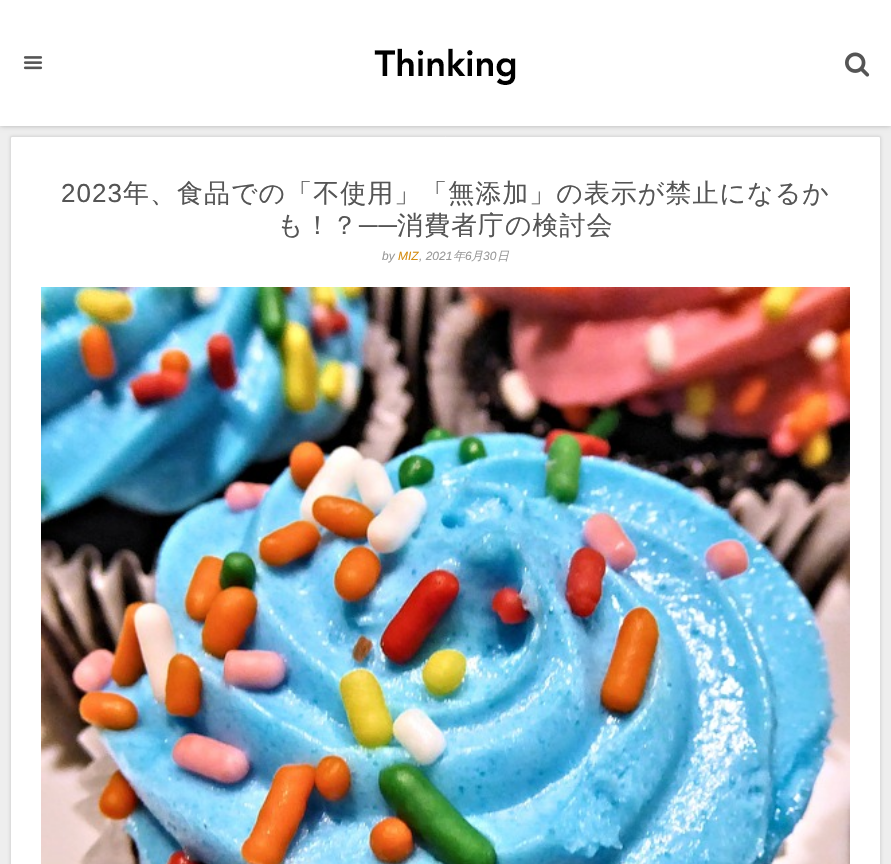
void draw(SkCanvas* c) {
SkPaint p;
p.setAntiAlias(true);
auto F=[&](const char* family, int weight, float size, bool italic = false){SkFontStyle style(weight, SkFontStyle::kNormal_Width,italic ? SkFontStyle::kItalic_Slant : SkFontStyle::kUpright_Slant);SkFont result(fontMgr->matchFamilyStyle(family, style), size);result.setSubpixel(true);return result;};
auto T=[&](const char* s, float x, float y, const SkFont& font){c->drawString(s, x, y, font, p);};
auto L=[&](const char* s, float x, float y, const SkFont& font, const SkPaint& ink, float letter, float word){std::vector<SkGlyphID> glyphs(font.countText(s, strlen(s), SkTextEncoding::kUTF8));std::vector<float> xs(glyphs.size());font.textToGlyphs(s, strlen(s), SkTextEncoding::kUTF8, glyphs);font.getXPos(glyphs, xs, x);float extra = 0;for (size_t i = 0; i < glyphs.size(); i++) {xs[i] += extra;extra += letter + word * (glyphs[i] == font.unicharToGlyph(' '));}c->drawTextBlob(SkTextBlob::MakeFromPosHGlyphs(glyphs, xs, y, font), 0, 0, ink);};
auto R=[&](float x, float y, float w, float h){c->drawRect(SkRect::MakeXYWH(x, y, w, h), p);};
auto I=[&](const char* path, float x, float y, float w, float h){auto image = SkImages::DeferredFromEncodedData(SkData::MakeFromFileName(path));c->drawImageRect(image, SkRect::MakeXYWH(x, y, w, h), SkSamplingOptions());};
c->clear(0xffeeeeee);
p.setColor(0x40000000);
p.setMaskFilter(SkMaskFilter::MakeBlur(kNormal_SkBlurStyle, 2.5));
c->drawRect(SkRect::MakeXYWH(0,0,891,126),p);
p.setMaskFilter(nullptr);
p.setColor(0xffffffff);
R(0,0,891,126);
I("1.png",23,56,20,14);
I("2.png",374,48,142,37);
I("3.png",845,52,25,25);
p.setColor(0x21000000);
p.setMaskFilter(SkMaskFilter::MakeBlur(kNormal_SkBlurStyle, 1.5));
c->drawRoundRect(SkRect::MakeXYWH(10,136,871,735),2,2,p);
p.setMaskFilter(nullptr);
p.setColor(0xffffffff);
c->drawRoundRect(SkRect::MakeXYWH(10.5,136.5,870,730),1.5,1.5,p);
p.setStroke(true);
p.setStrokeWidth(1);
p.setColor(0xffdddddd);
c->drawRoundRect(SkRect::MakeXYWH(10.5,136.5,870,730),1.5,1.5,p);
auto f1 = F("Liberation Sans",400,26);
p.setStroke(false);
p.setColor(0xff555555);
L("2023",61,202,f1,p,1,0);
auto f2 = F("WenQuanYi Zen Hei",500,26);
L("年、食品での「不使用」「無添加」の表示が禁止になるか",123,202,f2,p,1,0);
L("も！？",277,234,f2,p,1,0);
L("──",359,234,f1,p,1,0);
L("消費者庁の検討会",397,234,f2,p,1,0);
auto f3 = F("Liberation Sans",400,12,true);
p.setColor(0xff999999);
T("by",382,260,f3);
p.setColor(0xffd58d11);
T("MIZ",398,260,f3);
p.setColor(0xff999999);
T(", 2021",419,260,f3);
auto f4 = F("WenQuanYi Zen Hei",500,12,true);
T("年",453,260,f4);
T("6",465,260,f3);
T("月",471,260,f4);
T("30",483,260,f3);
T("日",497,260,f4);
I("4.png",41,287,809,577);
}
